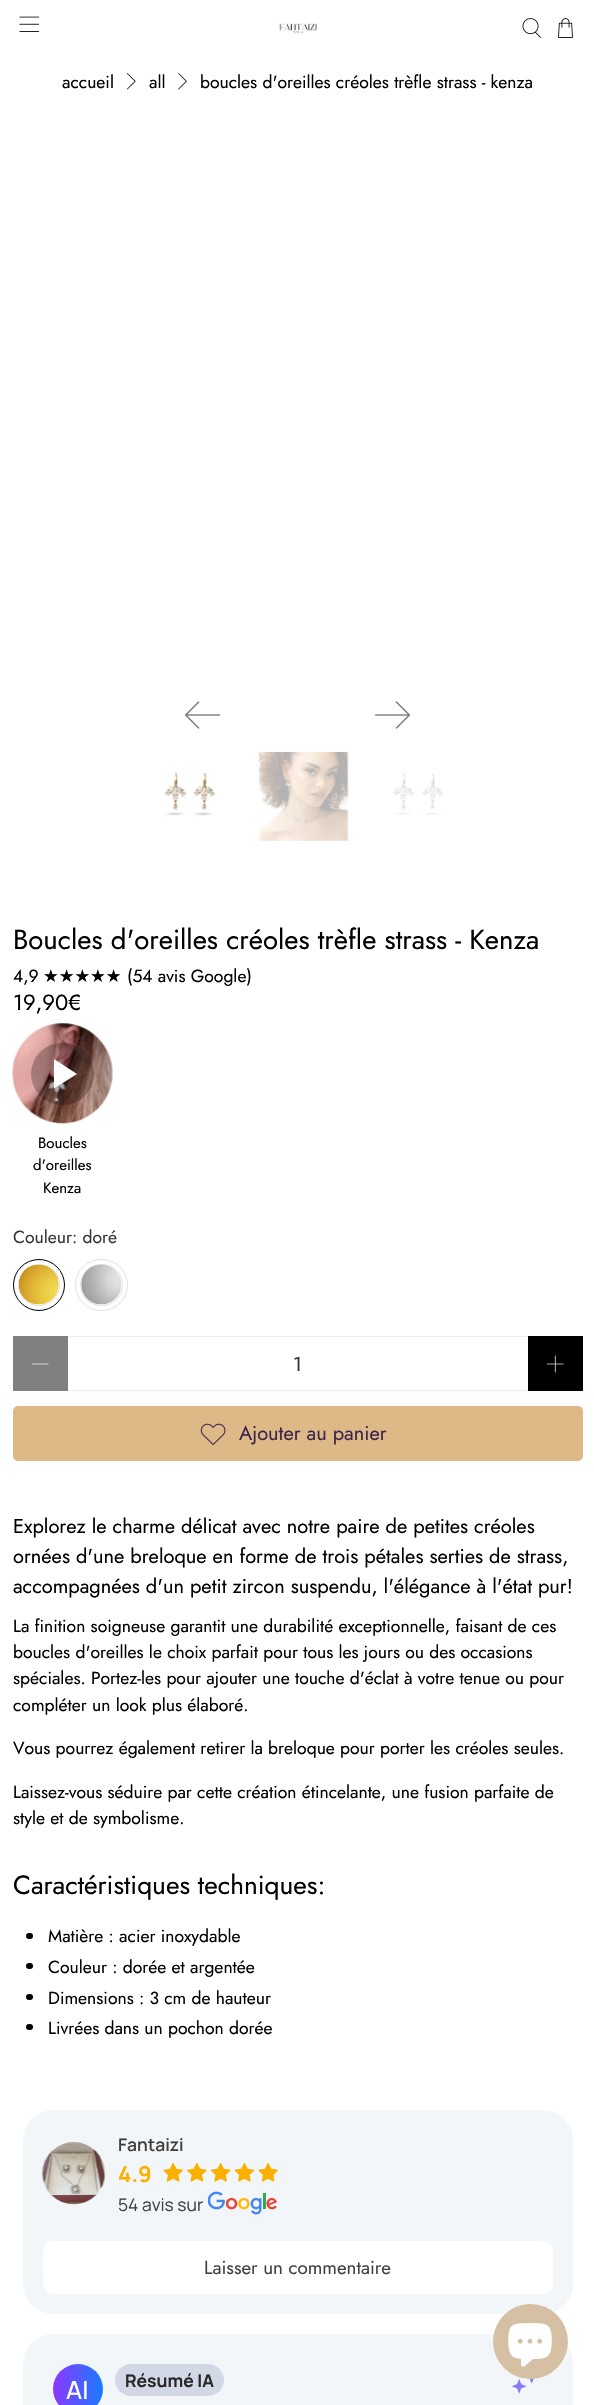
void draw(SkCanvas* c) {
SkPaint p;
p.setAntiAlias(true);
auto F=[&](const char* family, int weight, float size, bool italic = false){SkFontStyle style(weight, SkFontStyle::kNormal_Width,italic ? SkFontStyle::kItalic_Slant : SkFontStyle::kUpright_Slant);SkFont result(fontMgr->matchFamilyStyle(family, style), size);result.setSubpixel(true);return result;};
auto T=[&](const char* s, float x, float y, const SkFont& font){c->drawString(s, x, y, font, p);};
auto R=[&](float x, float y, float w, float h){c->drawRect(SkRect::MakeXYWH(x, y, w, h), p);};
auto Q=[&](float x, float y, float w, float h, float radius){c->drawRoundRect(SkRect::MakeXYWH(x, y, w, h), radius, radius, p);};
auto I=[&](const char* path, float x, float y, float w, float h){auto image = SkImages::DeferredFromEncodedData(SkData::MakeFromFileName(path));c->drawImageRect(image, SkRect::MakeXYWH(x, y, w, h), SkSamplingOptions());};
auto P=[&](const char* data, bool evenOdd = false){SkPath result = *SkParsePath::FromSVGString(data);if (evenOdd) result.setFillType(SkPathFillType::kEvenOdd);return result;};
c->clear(0xffffffff);
I("1.png",19,16,21,16);
I("2.png",279,23,38,11);
I("3.png",522,18,19,20);
I("4.png",558,18,15,20);
auto f1 = F("Jost",400,17.5);
p.setColor(0xff000000);
T("accueil",62,88,f1);
I("5.png",126,73,10,17);
T("all",149,88,f1);
I("6.png",178,73,9,17);
T("boucles d'oreilles créoles trèfle strass - kenza",200,88,f1);
I("7.png",185,701,35,28);
I("8.png",375,701,35,28);
I("9.png",164,772,52,44);
I("10.png",258,752,91,89);
I("11.png",392,773,52,42);
auto f2 = F("Jost",400,27.5);
T("Boucles d'oreilles créoles trèfle strass - Kenza",13,949,f2);
T("4,9",13,982,f1);
auto f3 = F("DejaVu Sans",400,17.5);
T("★★★★★",43,982,f3);
T("(54 avis Google)",127,982,f1);
auto f4 = F("Jost",400,22);
T("19,90€",13,1010,f4);
I("12.png",12,1023,101,101);
p.setColor(0x40000000);
Q(31,1043,63,62,31);
p.setColor(0xffffffff);
c->drawPath(P("M54 1088.5v-29.5l23 15z"),p);
auto f5 = F("Jost",400,15);
p.setColor(0xff000000);
T("Boucles",38,1148,f5);
T("d'oreilles",33,1170,f5);
T("Kenza",43,1193,f5);
p.setColor(0xff363636);
T("Couleur: doré",13,1243,f1);
p.setStroke(true);
p.setStrokeWidth(1);
p.setColor(0xff000000);
c->drawCircle(39,1285,25.5,p);
p.setColor(0xffe2e2e2);
c->drawCircle(39,1285,20.5,p);
I("13.png",18,1264,41,41);
c->drawRoundRect(SkRect::MakeXYWH(75.5,1259.5,52,51),25.5,25.5,p);
c->drawRoundRect(SkRect::MakeXYWH(80.5,1264.5,42,41),20.5,20.5,p);
I("14.png",81,1264,40,41);
p.setStroke(false);
p.setColor(0xff808080);
R(13,1336,55,55);
I("15.png",31,1363,18,2);
p.setColor(0xffededed);
R(68,1336,460,1);
R(68,1390,460,1);
auto f6 = F("Jost",400,20);
p.setColor(0xff363636);
T("1",293,1371,f6);
p.setColor(0xff000000);
R(528,1336,55,55);
I("16.png",546,1355,18,18);
p.setColor(0xffdeb887);
Q(13,1406,570,55,5);
I("17.png",200,1423,26,22);
p.setColor(0xff3b244d);
T("Ajouter au panier",239,1440,f6);
p.setColor(0xff000000);
T("Explorez le charme délicat avec notre paire de petites créoles",13,1533,f6);
T("ornées d'une breloque en forme de trois pétales serties de strass,",13,1563,f6);
T("accompagnées d'un petit zircon suspendu, l'élégance à l'état pur!",13,1593,f6);
T("La finition soigneuse garantit une durabilité exceptionnelle, faisant de ces",13,1632,f1);
T("boucles d'oreilles le choix parfait pour tous les jours ou des occasions",13,1658,f1);
T("spéciales. Portez-les pour ajouter une touche d'éclat à votre tenue ou pour",13,1684,f1);
T("compléter un look plus élaboré.",13,1711,f1);
T("Vous pourrez également retirer la breloque pour porter les créoles seules.",13,1754,f1);
T("Laissez-vous séduire par cette création étincelante, une fusion parfaite de",13,1798,f1);
T("style et de symbolisme.",13,1824,f1);
auto f7 = F("Jost",400,26.25);
T("Caractéristiques techniques:",13,1894,f7);
Q(26,1933,7,6,3);
T("Matière : acier inoxydable",48,1942,f1);
Q(26,1963,7,6,3);
T("Couleur : dorée et argentée",48,1973,f1);
Q(26,1994,7,6,3);
T("Dimensions : 3 cm de hauteur",48,2004,f1);
Q(26,2024,7,6,3);
T("Livrées dans un pochon dorée",48,2034,f1);
p.setColor(0xfff3f6f9);
Q(23,2110,550,204,30);
I("18.png",42,2142,64,63);
auto f8 = F("Manrope",600,17.5);
p.setColor(0xff404040);
T("Fantaizi",118,2151,f8);
auto f9 = F("Manrope",700,22);
p.setColor(0xfffbb000);
T("4.9",118,2182,f9);
I("19.png",163,2163,20,19);
I("20.png",187,2163,20,19);
I("21.png",210,2163,21,19);
I("22.png",234,2163,21,19);
I("19.png",258,2163,20,19);
auto f10 = F("Manrope",400,17.5);
p.setColor(0xff404040);
T("54 avis sur",118,2211,f10);
I("23.png",208,2191,69,24);
p.setColor(0xffffffff);
Q(43,2241,510,53,10);
auto f11 = F("Jost",400,18.75);
p.setColor(0xff404040);
T("Laisser un commentaire",204,2274,f11);
p.setColor(0xfff3f6f9);
Q(23,2334,550,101,30);
{
const SkColor colors[] = {0xff8d38ff,0xff197bff};
const float stops[] = {0,1};
const SkPoint ends[] = {{53,2389}, {103,2389}};
p.setShader(SkGradientShader::MakeLinear(ends, colors, stops, 2, SkTileMode::kClamp));
p.setAlpha(255);
}
c->drawCircle(78,2389,25,p);
auto f12 = F("Manrope",500,25);
p.setShader(nullptr);
p.setColor(0xffffffff);
T("AI",66,2399,f12);
p.setColor(0xffd3d8e7);
Q(115,2364,109,32,16);
auto f13 = F("Manrope",700,17.5);
p.setColor(0xff282828);
T("Résumé IA",125,2387,f13);
I("24.png",512,2378,22,16);
p.setColor(0xffd6c0a3);
c->drawCircle(530.5,2341.5,37.5,p);
I("25.png",508,2323,44,44);
}
